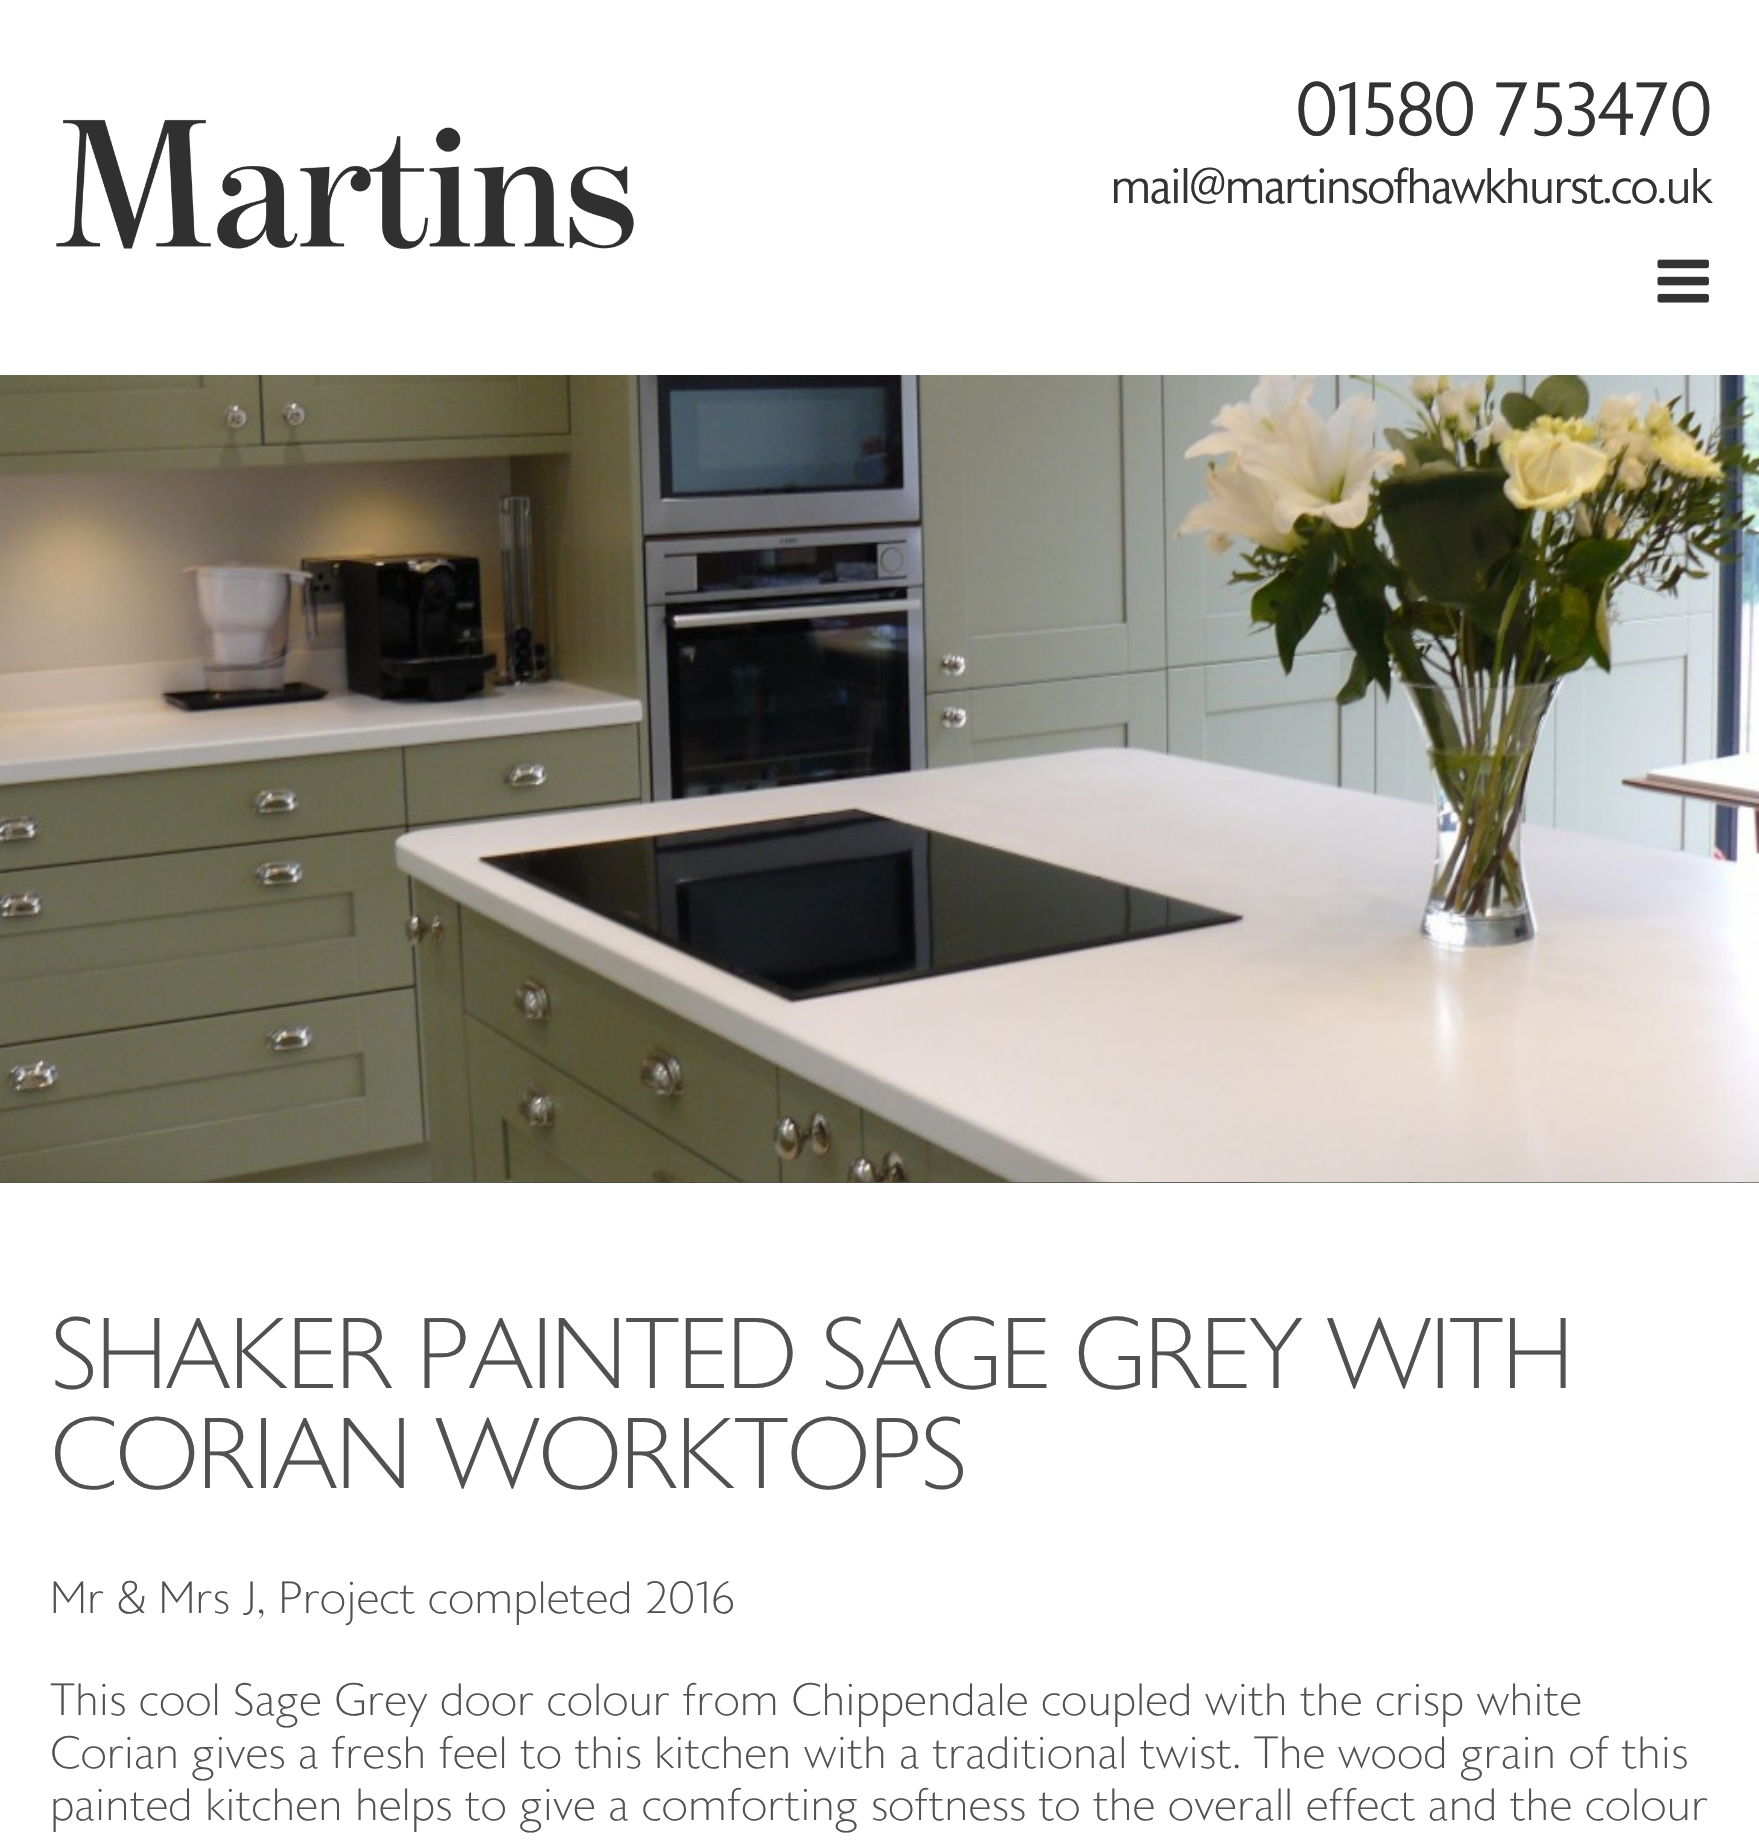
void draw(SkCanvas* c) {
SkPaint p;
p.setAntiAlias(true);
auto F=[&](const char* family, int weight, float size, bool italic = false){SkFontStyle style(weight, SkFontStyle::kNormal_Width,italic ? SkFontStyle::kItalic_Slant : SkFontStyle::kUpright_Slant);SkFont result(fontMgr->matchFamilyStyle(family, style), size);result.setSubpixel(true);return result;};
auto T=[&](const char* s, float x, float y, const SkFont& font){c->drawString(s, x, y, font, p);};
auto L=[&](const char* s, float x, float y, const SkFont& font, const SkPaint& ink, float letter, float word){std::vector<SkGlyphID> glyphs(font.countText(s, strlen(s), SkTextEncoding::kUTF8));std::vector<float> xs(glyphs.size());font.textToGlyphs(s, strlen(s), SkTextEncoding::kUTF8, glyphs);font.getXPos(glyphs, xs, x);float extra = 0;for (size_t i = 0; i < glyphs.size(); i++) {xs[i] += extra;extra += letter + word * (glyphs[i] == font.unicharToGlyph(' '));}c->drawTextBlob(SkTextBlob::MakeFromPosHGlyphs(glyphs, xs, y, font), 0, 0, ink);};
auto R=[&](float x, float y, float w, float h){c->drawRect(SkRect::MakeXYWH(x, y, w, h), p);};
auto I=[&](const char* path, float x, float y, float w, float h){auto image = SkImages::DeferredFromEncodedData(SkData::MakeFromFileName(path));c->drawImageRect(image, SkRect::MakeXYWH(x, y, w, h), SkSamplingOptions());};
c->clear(0xffffffff);
I("1.png",56,119,578,130);
auto f1 = F("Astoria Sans",300,75);
p.setColor(0xff333333);
L("01580 753470",1295,135,f1,p,-2.5,0);
auto f2 = F("Astoria Sans",300,50);
L("mail@martinsofhawkhurst.co.uk",1110,203,f2,p,-2.5,0);
I("2.png",1657,259,52,44);
p.setColor(0xff3d3d3d);
R(0,1182,1759,1);
I("4.png",0,1182,1759,1);
I("5.png",0,1182,1759,1);
I("3.png",0,375,1759,808);
auto f3 = F("Astoria Sans",200,100);
p.setColor(0xff515151);
L("SHAKER PAINTED SAGE GREY WITH",50,1388,f3,p,-2.5,0);
L("CORIAN WORKTOPS",50,1488,f3,p,-2.5,0);
auto f4 = F("Astoria Sans",200,45);
T("Mr & Mrs J, Project completed 2016",50,1613,f4);
T("This cool Sage Grey door colour from Chippendale coupled with the crisp white",50,1715,f4);
T("Corian gives a fresh feel to this kitchen with a traditional twist. The wood grain of this",50,1768,f4);
T("painted kitchen helps to give a comforting softness to the overall effect and the colour",50,1820,f4);
}
